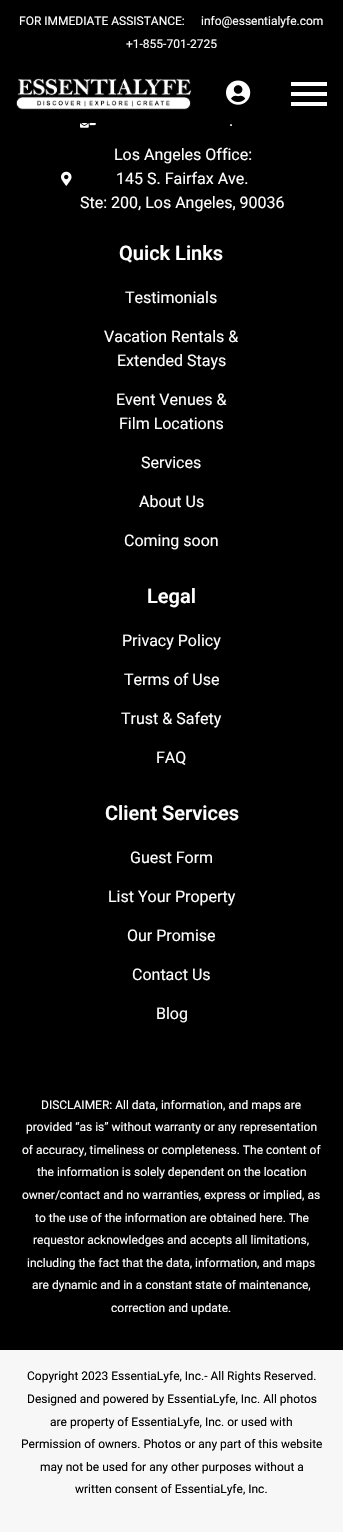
void draw(SkCanvas* c) {
SkPaint p;
p.setAntiAlias(true);
auto F=[&](const char* family, int weight, float size, bool italic = false){SkFontStyle style(weight, SkFontStyle::kNormal_Width,italic ? SkFontStyle::kItalic_Slant : SkFontStyle::kUpright_Slant);SkFont result(fontMgr->matchFamilyStyle(family, style), size);result.setSubpixel(true);return result;};
auto T=[&](const char* s, float x, float y, const SkFont& font){c->drawString(s, x, y, font, p);};
auto R=[&](float x, float y, float w, float h){c->drawRect(SkRect::MakeXYWH(x, y, w, h), p);};
auto I=[&](const char* path, float x, float y, float w, float h){auto image = SkImages::DeferredFromEncodedData(SkData::MakeFromFileName(path));c->drawImageRect(image, SkRect::MakeXYWH(x, y, w, h), SkSamplingOptions());};
c->clear(0xff000000);
auto f1 = F("Roboto",400,12);
p.setColor(0xffffffff);
T("FOR IMMEDIATE ASSISTANCE:",19,25,f1);
T("info@essentialyfe.com",201,25,f1);
T("+1-855-701-2725",126,48,f1);
I("1.png",16,78,176,32);
I("2.png",226,80,25,25);
R(291,82,36,4);
R(291,92,36,4);
R(291,102,36,4);
I("3.png",80,123,16,5);
auto f2 = F("Roboto",400,16);
T(".",229,126,f2);
I("4.png",61,171,11,15);
T("Los Angeles Office:",114,160,f2);
T("145 S. Fairfax Ave.",116,184,f2);
T("Ste: 200, Los Angeles, 90036",80,208,f2);
auto f3 = F("Roboto",600,20);
T("Quick Links",119,260,f3);
T("Testimonials",125,303,f2);
T("Vacation Rentals &",104,342,f2);
T("Extended Stays",117,366,f2);
T("Event Venues &",116,405,f2);
T("Film Locations",119,429,f2);
T("Services",141,468,f2);
T("About Us",139,507,f2);
T("Coming soon",124,546,f2);
T("Legal",147,603,f3);
T("Privacy Policy",122,646,f2);
T("Terms of Use",124,685,f2);
T("Trust & Safety",121,724,f2);
T("FAQ",156,763,f2);
T("Client Services",105,820,f3);
T("Guest Form",130,863,f2);
T("List Your Property",108,902,f2);
T("Our Promise",127,941,f2);
T("Contact Us",132,980,f2);
T("Blog",156,1019,f2);
T("DISCLAIMER: All data, information, and maps are",41,1109,f1);
T("provided “as is” without warranty or any representation",26,1131,f1);
T("of accuracy, timeliness or completeness. The content of",22,1154,f1);
T("the information is solely dependent on the location",37,1176,f1);
T("owner/contact and no warranties, express or implied, as",22,1199,f1);
T("to the use of the information are obtained here. The",35,1222,f1);
T("requestor acknowledges and accepts all limitations,",33,1244,f1);
T("including the fact that the data, information, and maps",27,1267,f1);
T("are dynamic and in a constant state of maintenance,",32,1289,f1);
T("correction and update.",111,1312,f1);
p.setColor(0xfff7f7f7);
R(0,1350,343,182);
p.setColor(0xff000000);
T("Copyright 2023 EssentiaLyfe, Inc.- All Rights Reserved.",27,1380,f1);
T("Designed and powered by EssentiaLyfe, Inc. All photos",27,1403,f1);
T("are property of EssentiaLyfe, Inc. or used with",50,1426,f1);
T("Permission of owners. Photos or any part of this website",21,1448,f1);
T("may not be used for any other purposes without a",40,1471,f1);
T("written consent of EssentiaLyfe, Inc.",75,1493,f1);
}
